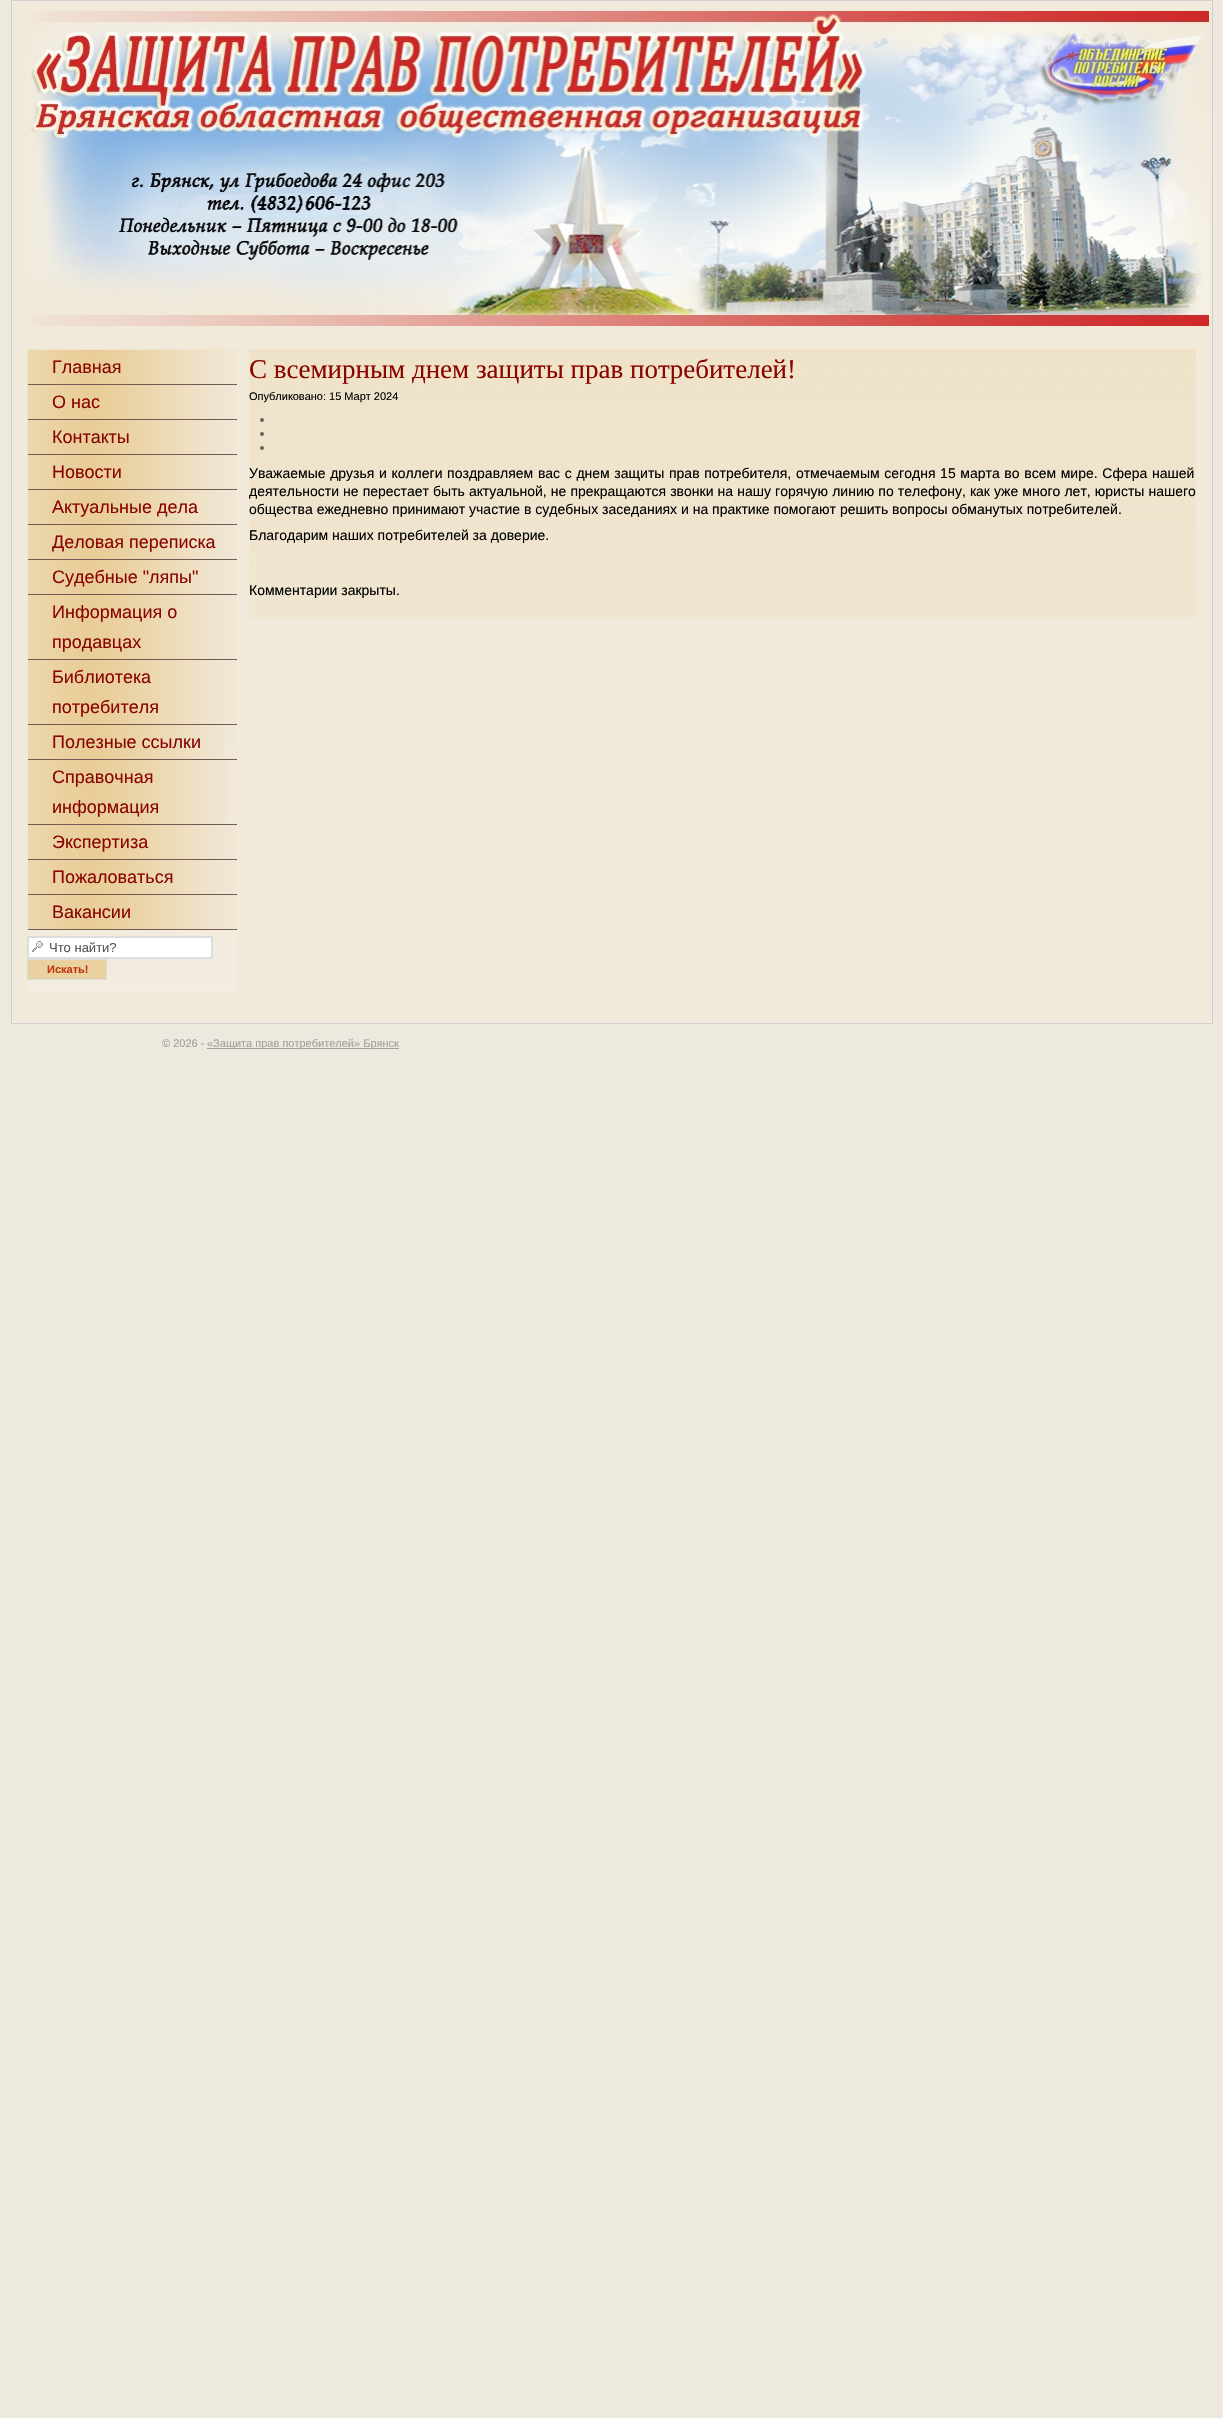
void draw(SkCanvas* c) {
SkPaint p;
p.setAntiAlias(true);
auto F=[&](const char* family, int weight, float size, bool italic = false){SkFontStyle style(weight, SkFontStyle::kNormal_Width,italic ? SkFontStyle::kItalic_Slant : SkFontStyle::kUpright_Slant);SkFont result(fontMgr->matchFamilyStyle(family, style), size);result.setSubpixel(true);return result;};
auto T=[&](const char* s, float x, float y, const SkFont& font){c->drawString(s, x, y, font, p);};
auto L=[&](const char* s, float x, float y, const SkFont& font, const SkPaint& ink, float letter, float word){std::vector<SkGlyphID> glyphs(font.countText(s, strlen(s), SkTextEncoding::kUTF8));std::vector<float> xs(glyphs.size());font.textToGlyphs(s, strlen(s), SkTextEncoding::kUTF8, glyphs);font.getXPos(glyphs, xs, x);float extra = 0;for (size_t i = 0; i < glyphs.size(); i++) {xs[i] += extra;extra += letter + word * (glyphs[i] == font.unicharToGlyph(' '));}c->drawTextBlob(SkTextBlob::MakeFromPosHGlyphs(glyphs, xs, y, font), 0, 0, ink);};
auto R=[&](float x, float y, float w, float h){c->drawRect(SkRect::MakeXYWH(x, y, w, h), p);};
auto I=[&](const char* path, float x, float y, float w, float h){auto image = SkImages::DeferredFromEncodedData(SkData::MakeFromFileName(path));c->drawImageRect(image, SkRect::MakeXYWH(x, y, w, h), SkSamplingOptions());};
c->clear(0xffede9de);
p.setColor(0xfff1e9d9);
c->drawRect(SkRect::MakeXYWH(11.5,.5,1201,1023),p);
p.setStroke(true);
p.setStrokeWidth(1);
p.setColor(0xffcecece);
c->drawRect(SkRect::MakeXYWH(11.5,.5,1201,1023),p);
I("1.png",22,11,1187,315);
I("2.png",27,349,210,643);
I("3.png",28,350,209,34);
p.setStroke(false);
p.setColor(0xff705a52);
R(28,384,209,1);
auto f1 = F("Liberation Sans",400,18);
p.setColor(0xff8b0500);
T("Главная",52,373,f1);
I("3.png",28,385,209,34);
p.setColor(0xff705a52);
R(28,419,209,1);
p.setColor(0xff8b0500);
T("О нас",52,408,f1);
I("3.png",28,420,209,34);
p.setColor(0xff705a52);
R(28,454,209,1);
p.setColor(0xff8b0500);
T("Контакты",52,443,f1);
I("3.png",28,455,209,34);
p.setColor(0xff705a52);
R(28,489,209,1);
p.setColor(0xff8b0500);
T("Новости",52,478,f1);
I("3.png",28,490,209,34);
p.setColor(0xff705a52);
R(28,524,209,1);
p.setColor(0xff8b0500);
T("Актуальные дела",52,513,f1);
I("3.png",28,525,209,34);
p.setColor(0xff705a52);
R(28,559,209,1);
p.setColor(0xff8b0500);
T("Деловая переписка",52,548,f1);
I("3.png",28,560,209,34);
p.setColor(0xff705a52);
R(28,594,209,1);
p.setColor(0xff8b0500);
T("Судебные \"ляпы\"",52,583,f1);
I("4.png",28,595,209,64);
p.setColor(0xff705a52);
R(28,659,209,1);
p.setColor(0xff8b0500);
T("Информация о",52,618,f1);
T("продавцах",52,648,f1);
I("4.png",28,660,209,64);
p.setColor(0xff705a52);
R(28,724,209,1);
p.setColor(0xff8b0500);
T("Библиотека",52,683,f1);
T("потребителя",52,713,f1);
I("5.png",28,725,196,34);
p.setColor(0xff705a52);
R(28,759,209,1);
p.setColor(0xff8b0500);
T("Полезные ссылки",52,748,f1);
I("6.png",28,760,200,64);
p.setColor(0xff705a52);
R(28,824,209,1);
p.setColor(0xff8b0500);
T("Справочная",52,783,f1);
T("информация",52,813,f1);
I("7.png",28,825,208,34);
p.setColor(0xff705a52);
R(28,859,209,1);
p.setColor(0xff8b0500);
T("Экспертиза",52,848,f1);
I("3.png",28,860,209,34);
p.setColor(0xff705a52);
R(28,894,209,1);
p.setColor(0xff8b0500);
T("Пожаловаться",52,883,f1);
I("3.png",28,895,209,34);
p.setColor(0xff705a52);
R(28,929,209,1);
p.setColor(0xff8b0500);
T("Вакансии",52,918,f1);
p.setColor(0xffffffff);
R(29,938,182,19);
I("8.png",32,941,11,11);
p.setStroke(true);
p.setStrokeWidth(2);
p.setColor(0xffdbdddf);
c->drawRect(SkRect::MakeXYWH(28,937,184,21),p);
auto f2 = F("Liberation Sans",400,13);
p.setStroke(false);
p.setColor(0xff555555);
T("Что найти?",49,952,f2);
p.setColor(0xffead1a0);
c->drawRect(SkRect::MakeXYWH(27.5,959.5,79,20),p);
p.setStroke(true);
p.setStrokeWidth(1);
p.setColor(0xffdbdddf);
c->drawRect(SkRect::MakeXYWH(27.5,959.5,79,20),p);
auto f3 = F("Liberation Sans",700,11);
p.setStroke(false);
p.setColor(0xffc33308);
T("Искать!",47,973,f3);
I("9.png",249,349,947,270);
auto f4 = F("Liberation Serif",400,27);
p.setColor(0xff8b0500);
T("С всемирным днем защиты прав потребителей!",249,378,f4);
auto f5 = F("Liberation Sans",400,11);
p.setColor(0xff000000);
T("Опубликовано: 15 Март 2024",249,400,f5);
p.setColor(0xff666666);
c->drawCircle(262,420,2,p);
c->drawCircle(262,434,2,p);
c->drawCircle(262,448,2,p);
auto f6 = F("Liberation Sans",400,14);
p.setColor(0xff000000);
L("Уважаемые друзья и коллеги поздравляем вас с днем защиты прав потребителя, отмечаемым сегодня 15 марта во всем мире. Сфера нашей",249,478,f6,p,0,.75);
L("деятельности не перестает быть актуальной, не прекращаются звонки на нашу горячую линию по телефону, как уже много лет, юристы нашего",249,496,f6,p,0,.2);
T("общества ежедневно принимают участие в судебных заседаниях и на практике помогают решить вопросы обманутых потребителей.",249,514,f6);
T("Благодарим наших потребителей за доверие.",249,540,f6);
T("Комментарии закрыты.",249,595,f6);
c->save();
c->clipRect(SkRect::MakeXYWH(162,1034,900,41));
p.setColor(0xffa0a0a0);
T("© 2026 -",162,1047,f5);
c->restore();
R(207,1048,192,1);
T("«Защита прав потребителей» Брянск",207,1047,f5);
}
